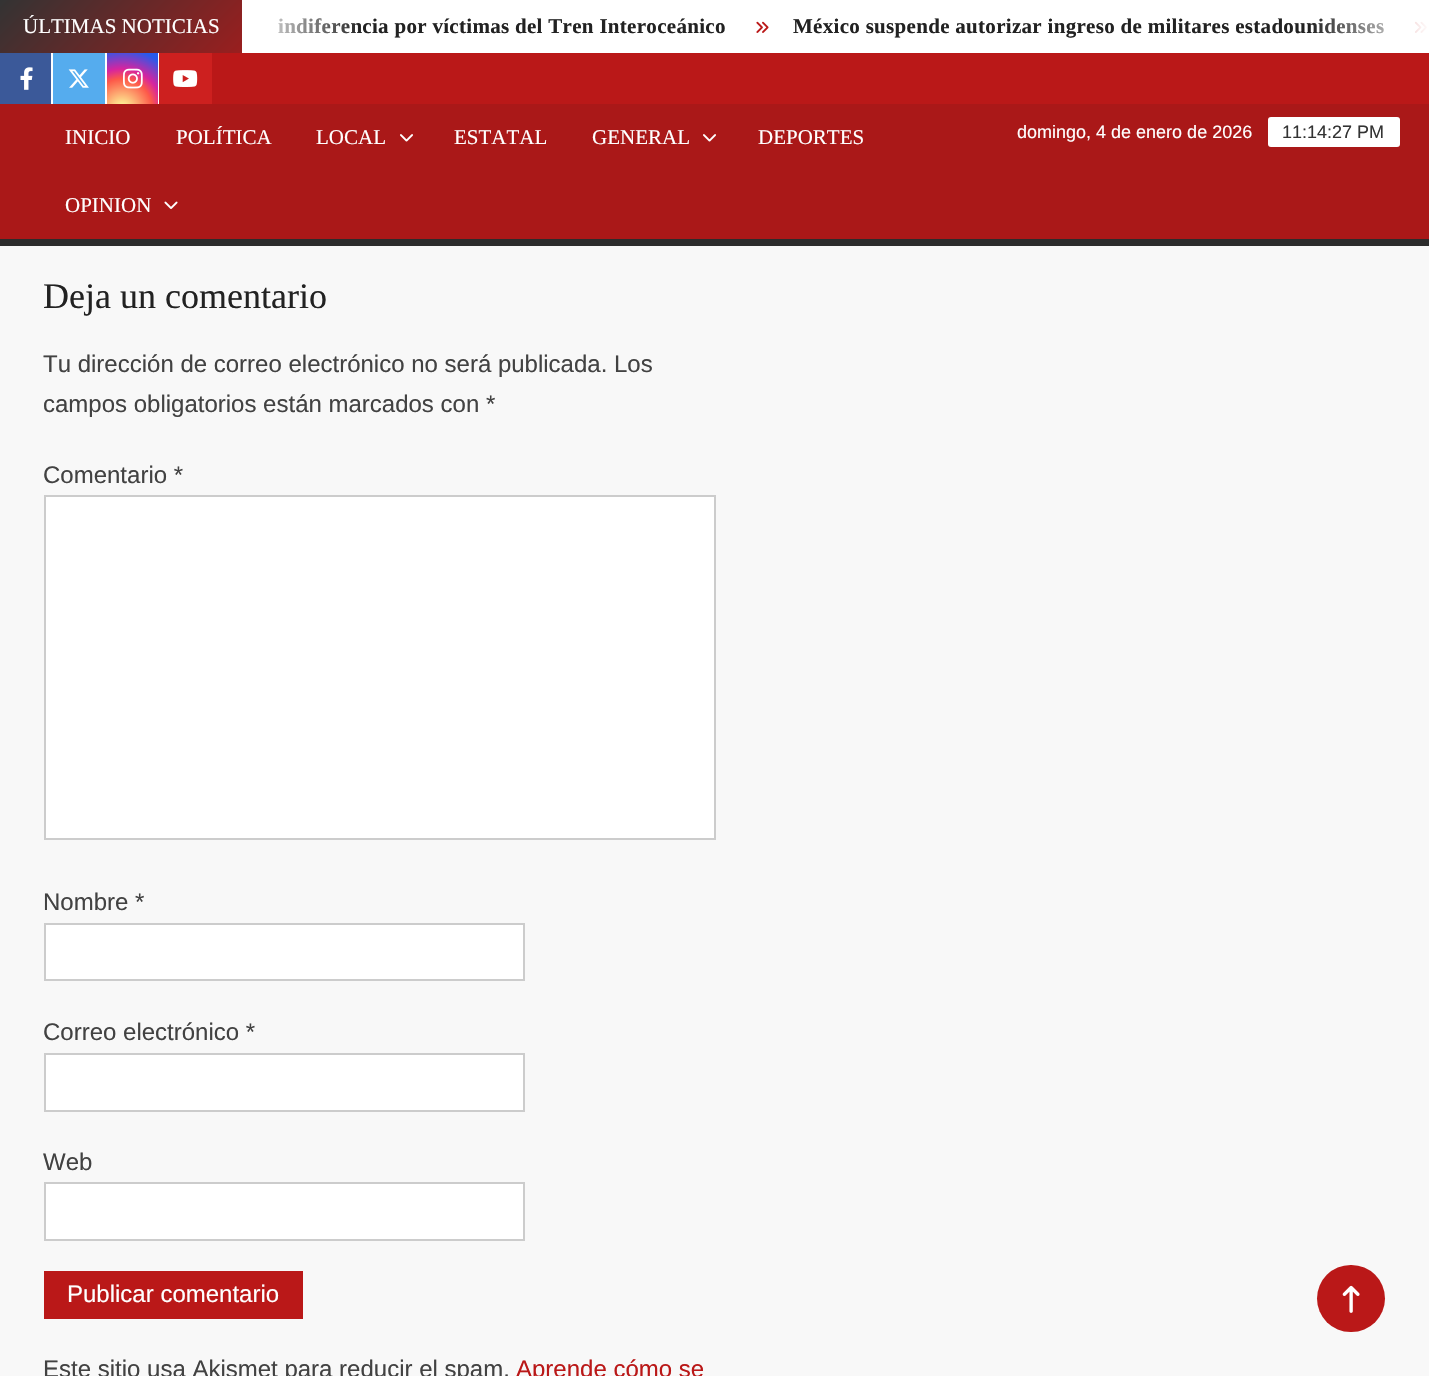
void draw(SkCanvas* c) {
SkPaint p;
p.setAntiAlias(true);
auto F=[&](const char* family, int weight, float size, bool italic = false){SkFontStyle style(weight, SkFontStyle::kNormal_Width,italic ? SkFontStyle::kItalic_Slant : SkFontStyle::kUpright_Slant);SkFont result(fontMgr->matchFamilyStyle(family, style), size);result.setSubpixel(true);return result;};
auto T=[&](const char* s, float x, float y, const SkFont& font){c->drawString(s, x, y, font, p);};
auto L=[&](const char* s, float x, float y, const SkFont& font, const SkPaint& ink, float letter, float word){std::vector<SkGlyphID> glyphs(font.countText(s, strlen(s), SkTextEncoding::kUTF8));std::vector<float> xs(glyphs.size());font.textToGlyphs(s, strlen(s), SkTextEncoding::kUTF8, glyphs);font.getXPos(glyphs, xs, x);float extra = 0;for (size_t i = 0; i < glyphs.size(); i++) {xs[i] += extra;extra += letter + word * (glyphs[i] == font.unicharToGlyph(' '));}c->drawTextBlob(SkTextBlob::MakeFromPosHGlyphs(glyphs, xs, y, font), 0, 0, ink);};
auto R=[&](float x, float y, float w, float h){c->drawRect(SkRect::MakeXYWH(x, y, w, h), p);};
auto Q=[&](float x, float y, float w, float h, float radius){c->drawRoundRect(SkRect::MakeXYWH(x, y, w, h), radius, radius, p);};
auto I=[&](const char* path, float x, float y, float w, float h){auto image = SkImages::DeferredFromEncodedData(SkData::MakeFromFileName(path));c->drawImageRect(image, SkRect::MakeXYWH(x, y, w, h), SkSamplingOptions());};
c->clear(0xfff8f8f8);
p.setColor(0xffffffff);
R(243,0,1186,53);
{
const SkColor colors[] = {0xffba1818,0xffeeeeee,0xffba1818,0xff333333};
const float stops[] = {0,.33,.67,1};
const SkPoint ends[] = {{777,399}, {189,-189}};
p.setShader(SkGradientShader::MakeLinear(ends, colors, stops, 4, SkTileMode::kClamp));
p.setAlpha(255);
}
R(0,0,242,53);
auto f1 = F("Liberation Serif",400,21);
p.setShader(nullptr);
p.setColor(0xffffffff);
T("ÚLTIMAS NOTICIAS",23,33,f1);
auto f2 = F("Liberation Serif",700,21);
p.setColor(0xff222222);
L("indiferencia por víctimas del Tren Interoceánico",278,33,f2,p,.3,0);
{
const SkColor colors[] = {0xffffffff,0x00ffffff};
const float stops[] = {0,1};
const SkPoint ends[] = {{242,26}, {362,26}};
p.setShader(SkGradientShader::MakeLinear(ends, colors, stops, 2, SkTileMode::kClamp));
p.setAlpha(255);
}
R(242,0,117,53);
I("1.png",756,21,13,12);
p.setShader(nullptr);
p.setColor(0xff222222);
L("México suspende autorizar ingreso de militares estadounidenses",793,33,f2,p,.3,0);
I("2.png",1414,21,13,12);
{
const SkColor colors[] = {0x00ffffff,0xffffffff};
const float stops[] = {0,1};
const SkPoint ends[] = {{1310,26}, {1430,26}};
p.setShader(SkGradientShader::MakeLinear(ends, colors, stops, 2, SkTileMode::kClamp));
p.setAlpha(255);
}
R(1313,18,114,16);
p.setShader(nullptr);
p.setColor(0xffba1818);
R(212,53,1217,51);
p.setColor(0xff3b5999);
R(0,53,51,51);
I("3.png",20,67,13,23);
p.setColor(0xffffffff);
R(51,53,2,52);
p.setColor(0xff55acee);
R(53,53,52,51);
I("4.png",68,69,21,19);
p.setColor(0xffffffff);
R(105,53,2,52);
{
const SkColor colors[] = {0xfffdf497,0xfffdf497,0xfffd5949,0xffd6249f,0xff285aeb};
const float stops[] = {0,.05,.45,.6,.9};
p.setShader(SkGradientShader::MakeRadial({122,109}, 67, colors, stops, 5, SkTileMode::kClamp));
p.setAlpha(255);
}
R(107,53,51,51);
I("5.png",123,68,20,21);
p.setShader(nullptr);
p.setColor(0xffffffff);
R(158,53,1,52);
p.setColor(0xffcd201f);
R(159,53,53,51);
I("6.png",173,70,25,17);
p.setColor(0xffaa1818);
R(0,104,1429,135);
p.setColor(0xff2c2c2c);
R(0,239,1429,7);
p.setColor(0xffffffff);
T("INICIO",65,144,f1);
T("POLÍTICA",176,144,f1);
T("LOCAL",316,144,f1);
I("7.png",400,134,13,8);
T("ESTATAL",454,144,f1);
T("GENERAL",592,144,f1);
I("7.png",703,134,13,8);
T("DEPORTES",758,144,f1);
T("OPINION",65,212,f1);
I("8.png",164,201,14,8);
auto f3 = F("Liberation Sans",400,18);
T("domingo, 4 de enero de 2026",1017,138,f3);
Q(1268,117,132,30,3);
p.setColor(0xff333333);
T("11:14:27 PM",1282,138,f3);
auto f4 = F("Liberation Serif",400,36);
p.setColor(0xff222222);
T("Deja un comentario",43,308,f4);
auto f5 = F("Liberation Sans",400,24);
p.setColor(0xff424242);
T("Tu dirección de correo electrónico no será publicada. Los",43,372,f5);
T("campos obligatorios están marcados con *",43,412,f5);
T("Comentario *",43,483,f5);
p.setColor(0xffffffff);
c->drawRect(SkRect::MakeXYWH(45,496,670,343),p);
p.setStroke(true);
p.setStrokeWidth(2);
p.setColor(0xffcccccc);
c->drawRect(SkRect::MakeXYWH(45,496,670,343),p);
p.setStroke(false);
p.setColor(0xff424242);
T("Nombre *",43,910,f5);
p.setColor(0xffffffff);
c->drawRect(SkRect::MakeXYWH(45,924,479,56),p);
p.setStroke(true);
p.setColor(0xffcccccc);
c->drawRect(SkRect::MakeXYWH(45,924,479,56),p);
p.setStroke(false);
p.setColor(0xff424242);
T("Correo electrónico *",43,1040,f5);
p.setColor(0xffffffff);
c->drawRect(SkRect::MakeXYWH(45,1054,479,57),p);
p.setStroke(true);
p.setColor(0xffcccccc);
c->drawRect(SkRect::MakeXYWH(45,1054,479,57),p);
p.setStroke(false);
p.setColor(0xff424242);
T("Web",43,1170,f5);
p.setColor(0xffffffff);
c->drawRect(SkRect::MakeXYWH(45,1183,479,57),p);
p.setStroke(true);
p.setColor(0xffcccccc);
c->drawRect(SkRect::MakeXYWH(45,1183,479,57),p);
p.setStroke(false);
p.setColor(0xffba1818);
R(44,1271,259,48);
p.setColor(0xffffffff);
T("Publicar comentario",67,1302,f5);
p.setColor(0xff424242);
T("Este sitio usa Akismet para reducir el spam.",43,1377,f5);
p.setColor(0xffba1818);
T("Aprende cómo se",516,1377,f5);
Q(1317,1265,68,67,33.5);
I("9.png",1342,1285,18,28);
}
